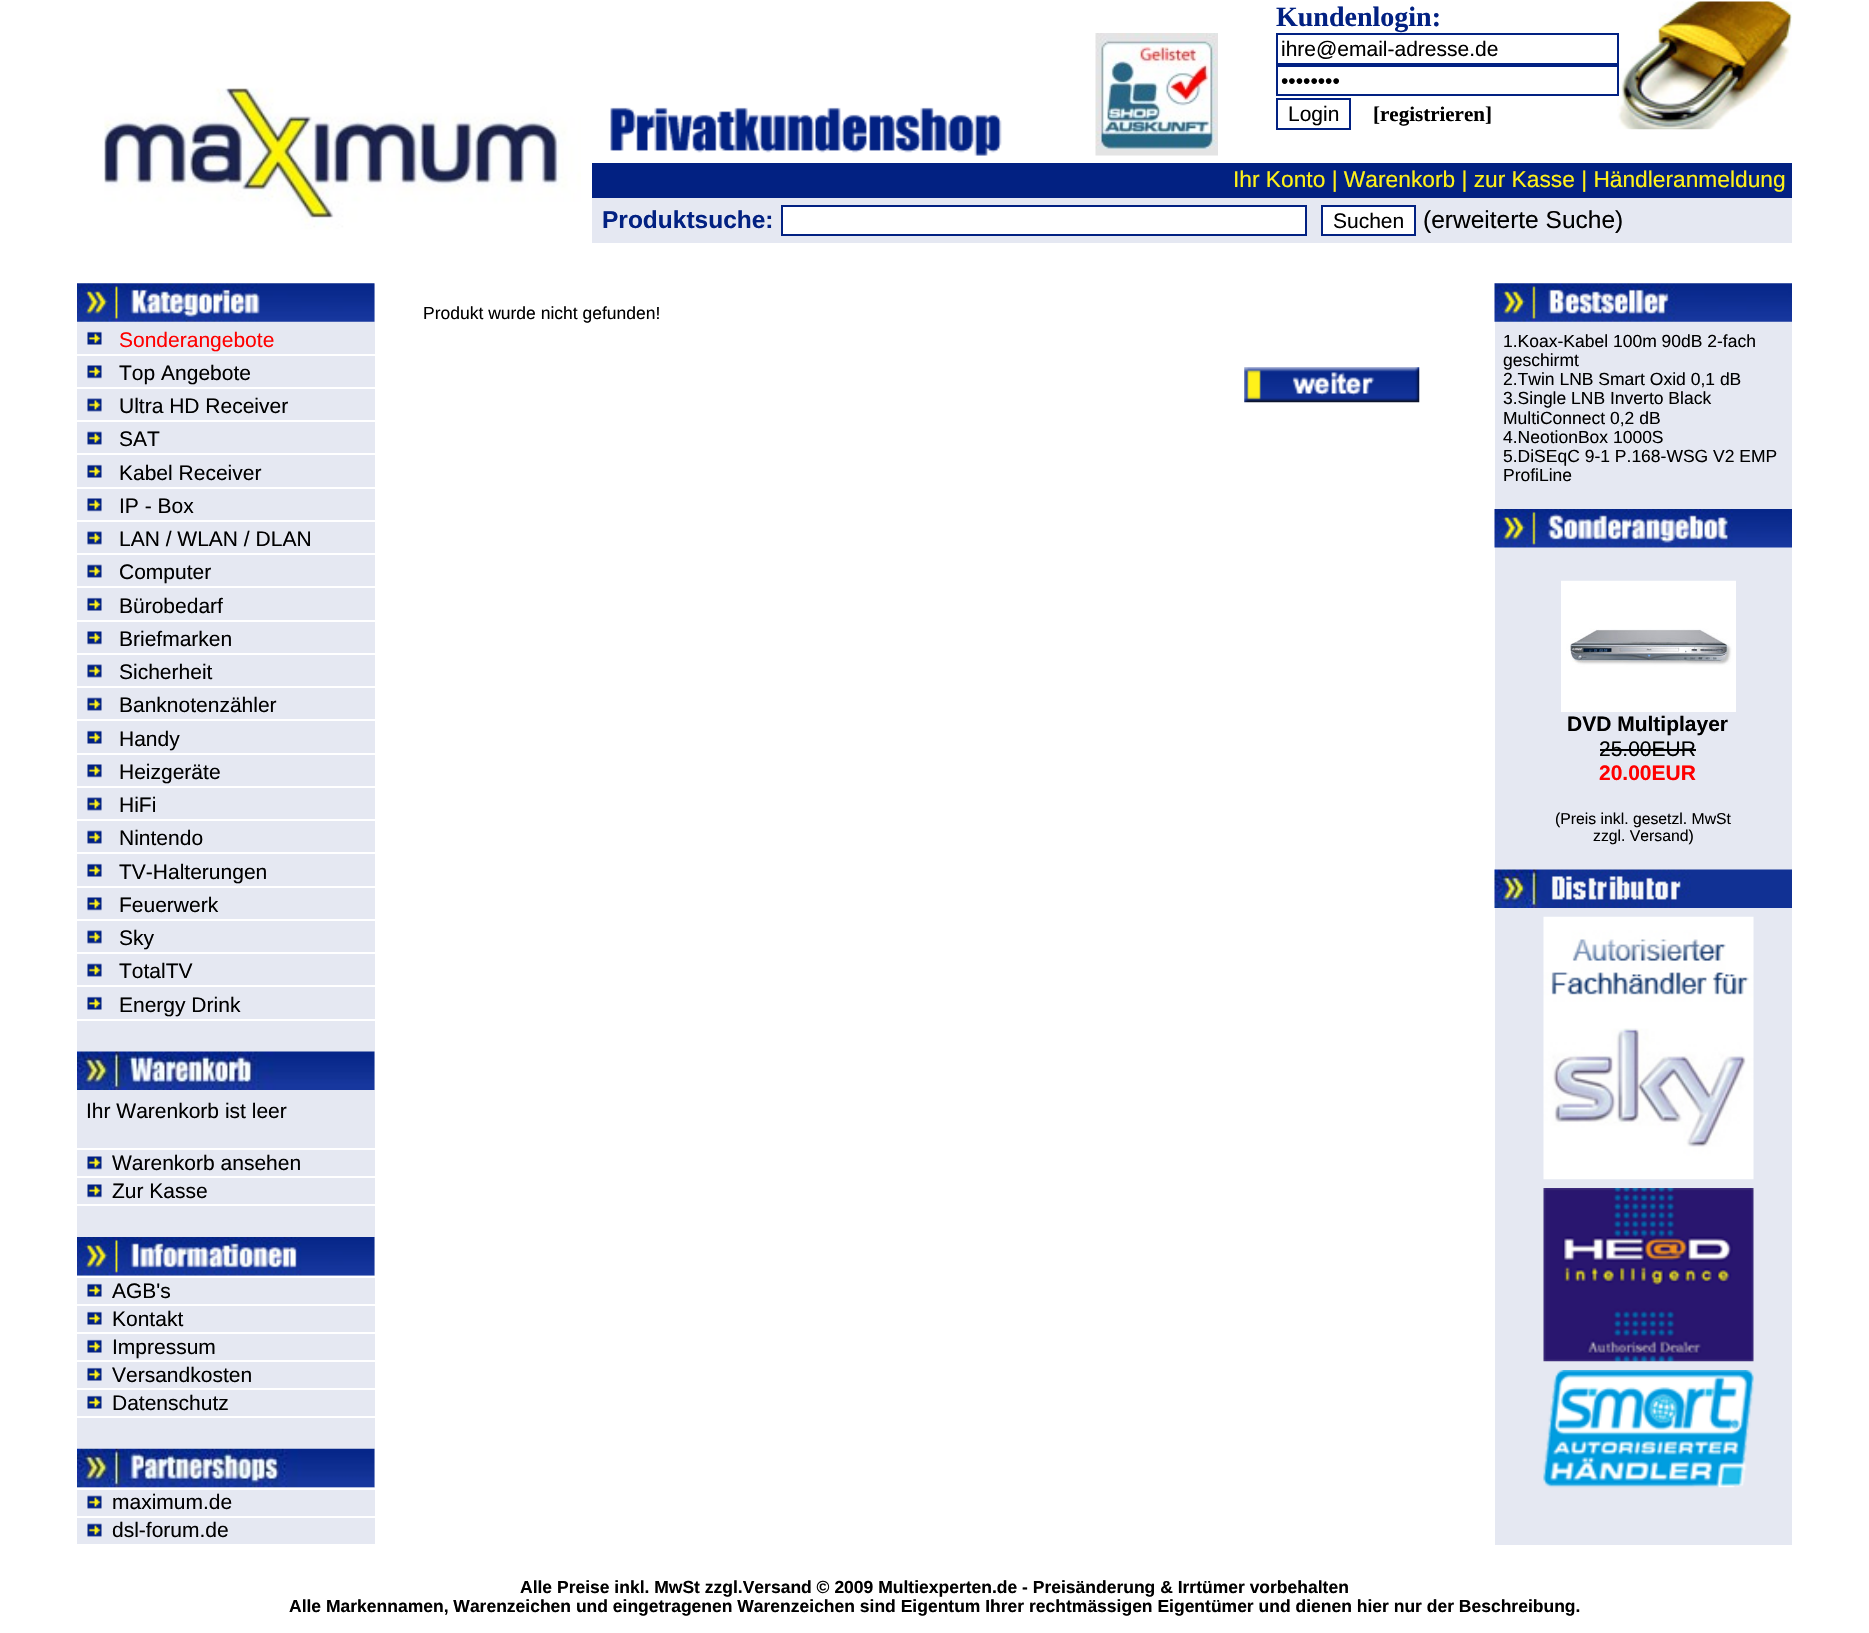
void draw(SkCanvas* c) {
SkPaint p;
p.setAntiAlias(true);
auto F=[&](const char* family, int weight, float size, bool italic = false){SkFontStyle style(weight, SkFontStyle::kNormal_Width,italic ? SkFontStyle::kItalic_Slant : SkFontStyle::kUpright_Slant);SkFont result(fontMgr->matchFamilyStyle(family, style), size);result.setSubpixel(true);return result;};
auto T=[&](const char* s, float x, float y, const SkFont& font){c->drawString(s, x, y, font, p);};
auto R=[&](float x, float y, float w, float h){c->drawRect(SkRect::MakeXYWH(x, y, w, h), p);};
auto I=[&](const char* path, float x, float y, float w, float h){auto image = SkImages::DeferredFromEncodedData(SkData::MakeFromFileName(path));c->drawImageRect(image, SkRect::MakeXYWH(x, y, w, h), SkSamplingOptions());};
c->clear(0xffffffff);
I("1.png",104,87,477,143);
I("2.png",610,107,392,49);
I("3.png",1095,33,123,123);
I("4.png",1617,1,175,129);
auto f1 = F("Liberation Serif",700,28);
p.setColor(0xff022182);
T("Kundenlogin:",1276,26,f1);
p.setStroke(true);
p.setStrokeWidth(2);
c->drawRect(SkRect::MakeXYWH(1277,34,341,30),p);
auto f2 = F("Liberation Sans",400,21);
p.setStroke(false);
p.setColor(0xff000000);
T("ihre@email-adresse.de",1281,56,f2);
p.setStroke(true);
p.setColor(0xff022182);
c->drawRect(SkRect::MakeXYWH(1277,66,341,29),p);
p.setStroke(false);
p.setColor(0xff000000);
T("••••••••",1281,88,f2);
p.setStroke(true);
p.setColor(0xff022182);
c->drawRect(SkRect::MakeXYWH(1277,99,73,30),p);
p.setStroke(false);
p.setColor(0xff000000);
T("Login",1288,121,f2);
auto f3 = F("Liberation Serif",700,21);
T("[registrieren]",1373,121,f3);
p.setColor(0xff022182);
R(592,163,1200,35);
auto f4 = F("Liberation Sans",400,22.75);
p.setColor(0xfffff119);
T("Ihr Konto | Warenkorb | zur Kasse | Händleranmeldung",1233,187,f4);
p.setColor(0xffe5e8f2);
R(592,198,1200,45);
auto f5 = F("Liberation Sans",700,24.5);
p.setColor(0xff022182);
T("Produktsuche:",602,228,f5);
p.setColor(0xffffffff);
c->drawRect(SkRect::MakeXYWH(782,206,524,29),p);
p.setStroke(true);
p.setColor(0xff022182);
c->drawRect(SkRect::MakeXYWH(782,206,524,29),p);
p.setStroke(false);
p.setColor(0xffffffff);
c->drawRect(SkRect::MakeXYWH(1322,206,93,29),p);
p.setStroke(true);
p.setColor(0xff022182);
c->drawRect(SkRect::MakeXYWH(1322,206,93,29),p);
p.setStroke(false);
p.setColor(0xff000000);
T("Suchen",1333,228,f2);
auto f6 = F("Liberation Sans",400,24.5);
T("(erweiterte Suche)",1423,228,f6);
auto f7 = F("Liberation Sans",400,17.5);
T("Produkt wurde nicht gefunden!",423,319,f7);
I("5.png",1244,367,176,36);
p.setColor(0xffe5e8f2);
R(77,284,298,1260);
I("6.png",77,283,298,39);
I("7.png",87,331,15,14);
p.setColor(0xffff0000);
T("Sonderangebote",119,347,f2);
p.setColor(0xffffffff);
R(77,354,298,2);
I("8.png",87,365,15,14);
p.setColor(0xff000000);
T("Top Angebote",119,380,f2);
p.setColor(0xffffffff);
R(77,387,298,2);
I("9.png",87,398,15,14);
p.setColor(0xff000000);
T("Ultra HD Receiver",119,413,f2);
p.setColor(0xffffffff);
R(77,420,298,2);
I("10.png",87,431,15,14);
p.setColor(0xff000000);
T("SAT",119,446,f2);
p.setColor(0xffffffff);
R(77,453,298,2);
I("7.png",87,464,15,14);
p.setColor(0xff000000);
T("Kabel Receiver",119,480,f2);
p.setColor(0xffffffff);
R(77,487,298,2);
I("8.png",87,498,15,14);
p.setColor(0xff000000);
T("IP - Box",119,513,f2);
p.setColor(0xffffffff);
R(77,520,298,2);
I("9.png",87,531,15,14);
p.setColor(0xff000000);
T("LAN / WLAN / DLAN",119,546,f2);
p.setColor(0xffffffff);
R(77,553,298,2);
I("10.png",87,564,15,14);
p.setColor(0xff000000);
T("Computer",119,579,f2);
p.setColor(0xffffffff);
R(77,586,298,2);
I("7.png",87,597,15,14);
p.setColor(0xff000000);
T("Bürobedarf",119,613,f2);
p.setColor(0xffffffff);
R(77,620,298,2);
I("8.png",87,631,15,14);
p.setColor(0xff000000);
T("Briefmarken",119,646,f2);
p.setColor(0xffffffff);
R(77,653,298,2);
I("9.png",87,664,15,14);
p.setColor(0xff000000);
T("Sicherheit",119,679,f2);
p.setColor(0xffffffff);
R(77,686,298,2);
I("10.png",87,697,15,14);
p.setColor(0xff000000);
T("Banknotenzähler",119,712,f2);
p.setColor(0xffffffff);
R(77,719,298,2);
I("7.png",87,730,15,14);
p.setColor(0xff000000);
T("Handy",119,746,f2);
p.setColor(0xffffffff);
R(77,753,298,2);
I("8.png",87,764,15,14);
p.setColor(0xff000000);
T("Heizgeräte",119,779,f2);
p.setColor(0xffffffff);
R(77,786,298,2);
I("9.png",87,797,15,14);
p.setColor(0xff000000);
T("HiFi",119,812,f2);
p.setColor(0xffffffff);
R(77,819,298,2);
I("10.png",87,830,15,14);
p.setColor(0xff000000);
T("Nintendo",119,845,f2);
p.setColor(0xffffffff);
R(77,852,298,2);
I("7.png",87,863,15,14);
p.setColor(0xff000000);
T("TV-Halterungen",119,879,f2);
p.setColor(0xffffffff);
R(77,886,298,2);
I("8.png",87,897,15,14);
p.setColor(0xff000000);
T("Feuerwerk",119,912,f2);
p.setColor(0xffffffff);
R(77,919,298,2);
I("9.png",87,930,15,14);
p.setColor(0xff000000);
T("Sky",119,945,f2);
p.setColor(0xffffffff);
R(77,952,298,2);
I("10.png",87,963,15,14);
p.setColor(0xff000000);
T("TotalTV",119,978,f2);
p.setColor(0xffffffff);
R(77,985,298,2);
I("7.png",87,996,15,14);
p.setColor(0xff000000);
T("Energy Drink",119,1012,f2);
p.setColor(0xffffffff);
R(77,1019,298,2);
I("11.png",77,1051,298,39);
p.setColor(0xff000000);
T("Ihr Warenkorb ist leer",86,1118,f2);
p.setColor(0xffffffff);
R(77,1148,298,2);
I("8.png",87,1156,15,14);
p.setColor(0xff000000);
T("Warenkorb ansehen",112,1170,f2);
p.setColor(0xffffffff);
R(77,1176,298,2);
I("8.png",87,1184,15,14);
p.setColor(0xff000000);
T("Zur Kasse",112,1198,f2);
p.setColor(0xffffffff);
R(77,1204,298,2);
I("12.png",77,1237,298,39);
R(77,1276,298,2);
I("7.png",87,1283,15,14);
p.setColor(0xff000000);
T("AGB's",112,1298,f2);
p.setColor(0xffffffff);
R(77,1304,298,2);
I("7.png",87,1311,15,14);
p.setColor(0xff000000);
T("Kontakt",112,1326,f2);
p.setColor(0xffffffff);
R(77,1332,298,2);
I("7.png",87,1339,15,14);
p.setColor(0xff000000);
T("Impressum",112,1354,f2);
p.setColor(0xffffffff);
R(77,1360,298,2);
I("7.png",87,1367,15,14);
p.setColor(0xff000000);
T("Versandkosten",112,1382,f2);
p.setColor(0xffffffff);
R(77,1388,298,2);
I("7.png",87,1395,15,14);
p.setColor(0xff000000);
T("Datenschutz",112,1410,f2);
p.setColor(0xffffffff);
R(77,1416,298,2);
I("13.png",77,1448,298,40);
R(77,1488,298,2);
I("10.png",87,1495,15,14);
p.setColor(0xff000000);
T("maximum.de",112,1509,f2);
p.setColor(0xffffffff);
R(77,1516,298,2);
I("10.png",87,1523,15,14);
p.setColor(0xff000000);
T("dsl-forum.de",112,1537,f2);
p.setColor(0xffe5e8f2);
R(1495,321,297,1224);
I("14.png",1494,283,298,39);
p.setColor(0xff000000);
T("1.Koax-Kabel 100m 90dB 2-fach",1503,347,f7);
T("geschirmt",1503,366,f7);
T("2.Twin LNB Smart Oxid 0,1 dB",1503,385,f7);
T("3.Single LNB Inverto Black",1503,404,f7);
T("MultiConnect 0,2 dB",1503,424,f7);
T("4.NeotionBox 1000S",1503,443,f7);
T("5.DiSEqC 9-1 P.168-WSG V2 EMP",1503,462,f7);
T("ProfiLine",1503,481,f7);
I("15.png",1494,509,298,39);
I("16.png",1561,580,175,132);
auto f8 = F("Liberation Sans",700,21);
T("DVD Multiplayer",1567,731,f8);
T("25.00EUR",1599,756,f2);
R(1600,749,96,2);
p.setColor(0xffff0000);
T("20.00EUR",1599,780,f8);
auto f9 = F("Liberation Sans",400,15.75);
p.setColor(0xff000000);
T("(Preis inkl. gesetzl. MwSt",1555,824,f9);
T("zzgl. Versand)",1593,841,f9);
I("17.png",1494,869,298,39);
I("18.png",1543,916,211,264);
I("19.png",1543,1188,211,174);
I("20.png",1543,1370,211,118);
auto f10 = F("Liberation Sans",700,17.5);
T("Alle Preise inkl. MwSt zzgl.Versand © 2009 Multiexperten.de - Preisänderung & Irrtümer vorbehalten",520,1593,f10);
T("Alle Markennamen, Warenzeichen und eingetragenen Warenzeichen sind Eigentum Ihrer rechtmässigen Eigentümer und dienen hier nur der Beschreibung.",289,1612,f10);
}
